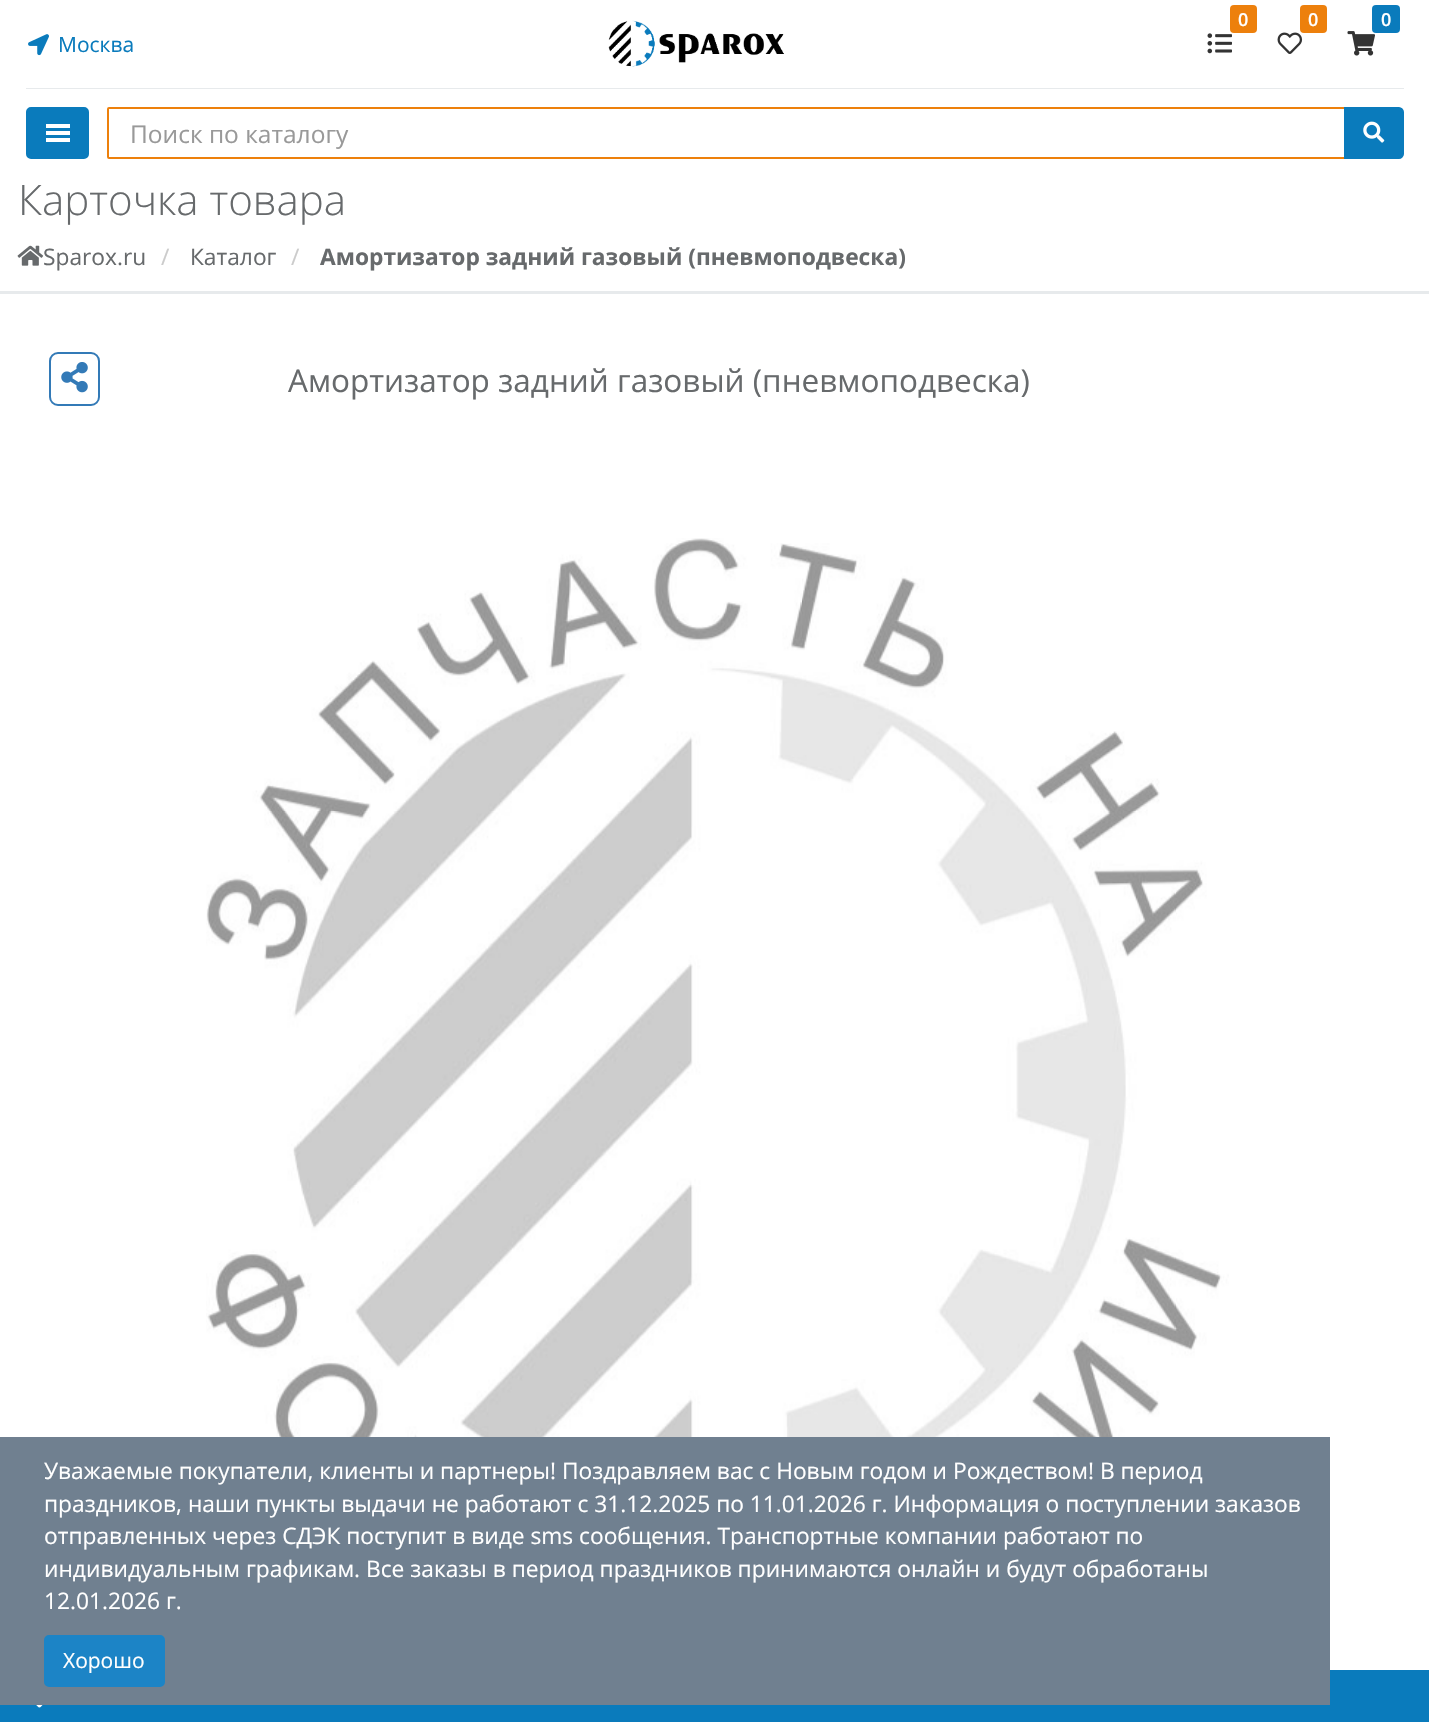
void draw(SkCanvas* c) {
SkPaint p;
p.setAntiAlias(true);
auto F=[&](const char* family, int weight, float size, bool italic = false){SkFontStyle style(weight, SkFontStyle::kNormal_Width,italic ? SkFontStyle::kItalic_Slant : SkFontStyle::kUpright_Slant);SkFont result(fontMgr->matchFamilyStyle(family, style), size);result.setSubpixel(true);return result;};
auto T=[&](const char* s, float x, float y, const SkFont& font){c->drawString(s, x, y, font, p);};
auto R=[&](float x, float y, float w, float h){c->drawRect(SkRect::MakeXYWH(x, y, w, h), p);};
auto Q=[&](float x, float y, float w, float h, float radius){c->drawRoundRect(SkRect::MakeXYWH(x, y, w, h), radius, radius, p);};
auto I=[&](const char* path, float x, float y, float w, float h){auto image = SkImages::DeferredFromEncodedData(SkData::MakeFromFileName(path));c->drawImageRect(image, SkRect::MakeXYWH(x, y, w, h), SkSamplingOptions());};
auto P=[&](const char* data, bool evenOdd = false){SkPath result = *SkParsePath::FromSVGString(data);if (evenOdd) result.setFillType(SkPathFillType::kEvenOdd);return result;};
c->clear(0xffffffff);
p.setColor(0xffe7eaec);
R(26,88,1378,1);
I("1.png",28,34,21,22);
auto f1 = F("Open Sans",400,21);
p.setColor(0xff0a7bbc);
T("Москва",58,52,f1);
I("2.png",608,20,176,47);
p.setColor(0xffed800c);
Q(1230,5,27,28,4);
auto f2 = F("Open Sans",600,18);
p.setColor(0xffffffff);
T("0",1238,26,f2);
I("3.png",1207,33,25,21);
I("4.png",1277,32,26,22);
p.setColor(0xffed800c);
Q(1300,5,27,28,4);
p.setColor(0xffffffff);
T("0",1308,26,f2);
I("5.png",1347,31,28,25);
p.setColor(0xff0a7bbc);
Q(1372,5,28,28,4);
p.setColor(0xffffffff);
T("0",1381,26,f2);
p.setColor(0xff0a7bbc);
c->drawRoundRect(SkRect::MakeXYWH(27,108,61,50),4,4,p);
p.setStroke(true);
p.setStrokeWidth(2);
c->drawRoundRect(SkRect::MakeXYWH(27,108,61,50),4,4,p);
p.setStroke(false);
p.setColor(0xffffffff);
R(46,131,24,4);
R(46,124,24,4);
R(46,138,24,4);
p.setStroke(true);
p.setColor(0xffed800c);
c->drawPath(P("M109 108h1236v50h-1236c-.5 0-1-.5-1-1v-48c0-.5 .5-1 1-1z"),p);
auto f3 = F("Open Sans",400,24.5);
p.setStroke(false);
p.setColor(0xff999999);
T("Поиск по каталогу",130,143,f3);
p.setColor(0xff0a7bbc);
c->drawPath(P("M1345 108h54c2 0 4 2 4 4v42c0 2-2 4-4 4h-54z"),p);
p.setStroke(true);
c->drawPath(P("M1345 108h54c2 0 4 2 4 4v42c0 2-2 4-4 4h-54z"),p);
I("6.png",1363,121,22,22);
p.setStroke(false);
p.setColor(0xffe7eaec);
R(0,291,1429,3);
auto f4 = F("Open Sans",300,42);
p.setColor(0xff676a6c);
T("Карточка товара",18,215,f4);
I("7.png",17,245,27,21);
auto f5 = F("Open Sans",400,22.75);
T("Sparox.ru",43,265,f5);
p.setColor(0xffcccccc);
T("/",161,265,f5);
p.setColor(0xff676a6c);
T("Каталог",190,265,f5);
p.setColor(0xffcccccc);
T("/",291,265,f5);
auto f6 = F("Open Sans",700,22.75);
p.setColor(0xff676a6c);
T("Амортизатор задний газовый (пневмоподвеска)",320,265,f6);
p.setStroke(true);
p.setColor(0xff337ab7);
c->drawRoundRect(SkRect::MakeXYWH(50,353,49,52),8,8,p);
I("8.png",61,362,27,31);
auto f7 = F("Open Sans",400,31.5);
p.setStroke(false);
p.setColor(0xff676a6c);
T("Амортизатор задний газовый (пневмоподвеска)",288,392,f7);
I("9.png",206,538,1023,899);
p.setColor(0xff0a7bbc);
R(0,1670,1429,52);
p.setColor(0xff708090);
R(0,1437,1330,268);
p.setColor(0xffffffff);
T("Уважаемые покупатели, клиенты и партнеры! Поздравляем вас с Новым годом и Рождеством! В период",44,1479,f5);
T("праздников, наши пункты выдачи не работают с 31.12.2025 по 11.01.2026 г. Информация о поступлении заказов",44,1512,f5);
T("отправленных через СДЭК поступит в виде sms сообщения. Транспортные компании работают по",44,1544,f5);
T("индивидуальным графикам. Все заказы в период праздников принимаются онлайн и будут обработаны",44,1577,f5);
T("12.01.2026 г.",44,1609,f5);
p.setColor(0xff1c84c6);
c->drawRoundRect(SkRect::MakeXYWH(45,1636,119,50),4,4,p);
p.setStroke(true);
c->drawRoundRect(SkRect::MakeXYWH(45,1636,119,50),4,4,p);
p.setStroke(false);
p.setColor(0xffffffff);
T("Хорошо",63,1668,f1);
I("10.png",36,1705,7,3);
}
